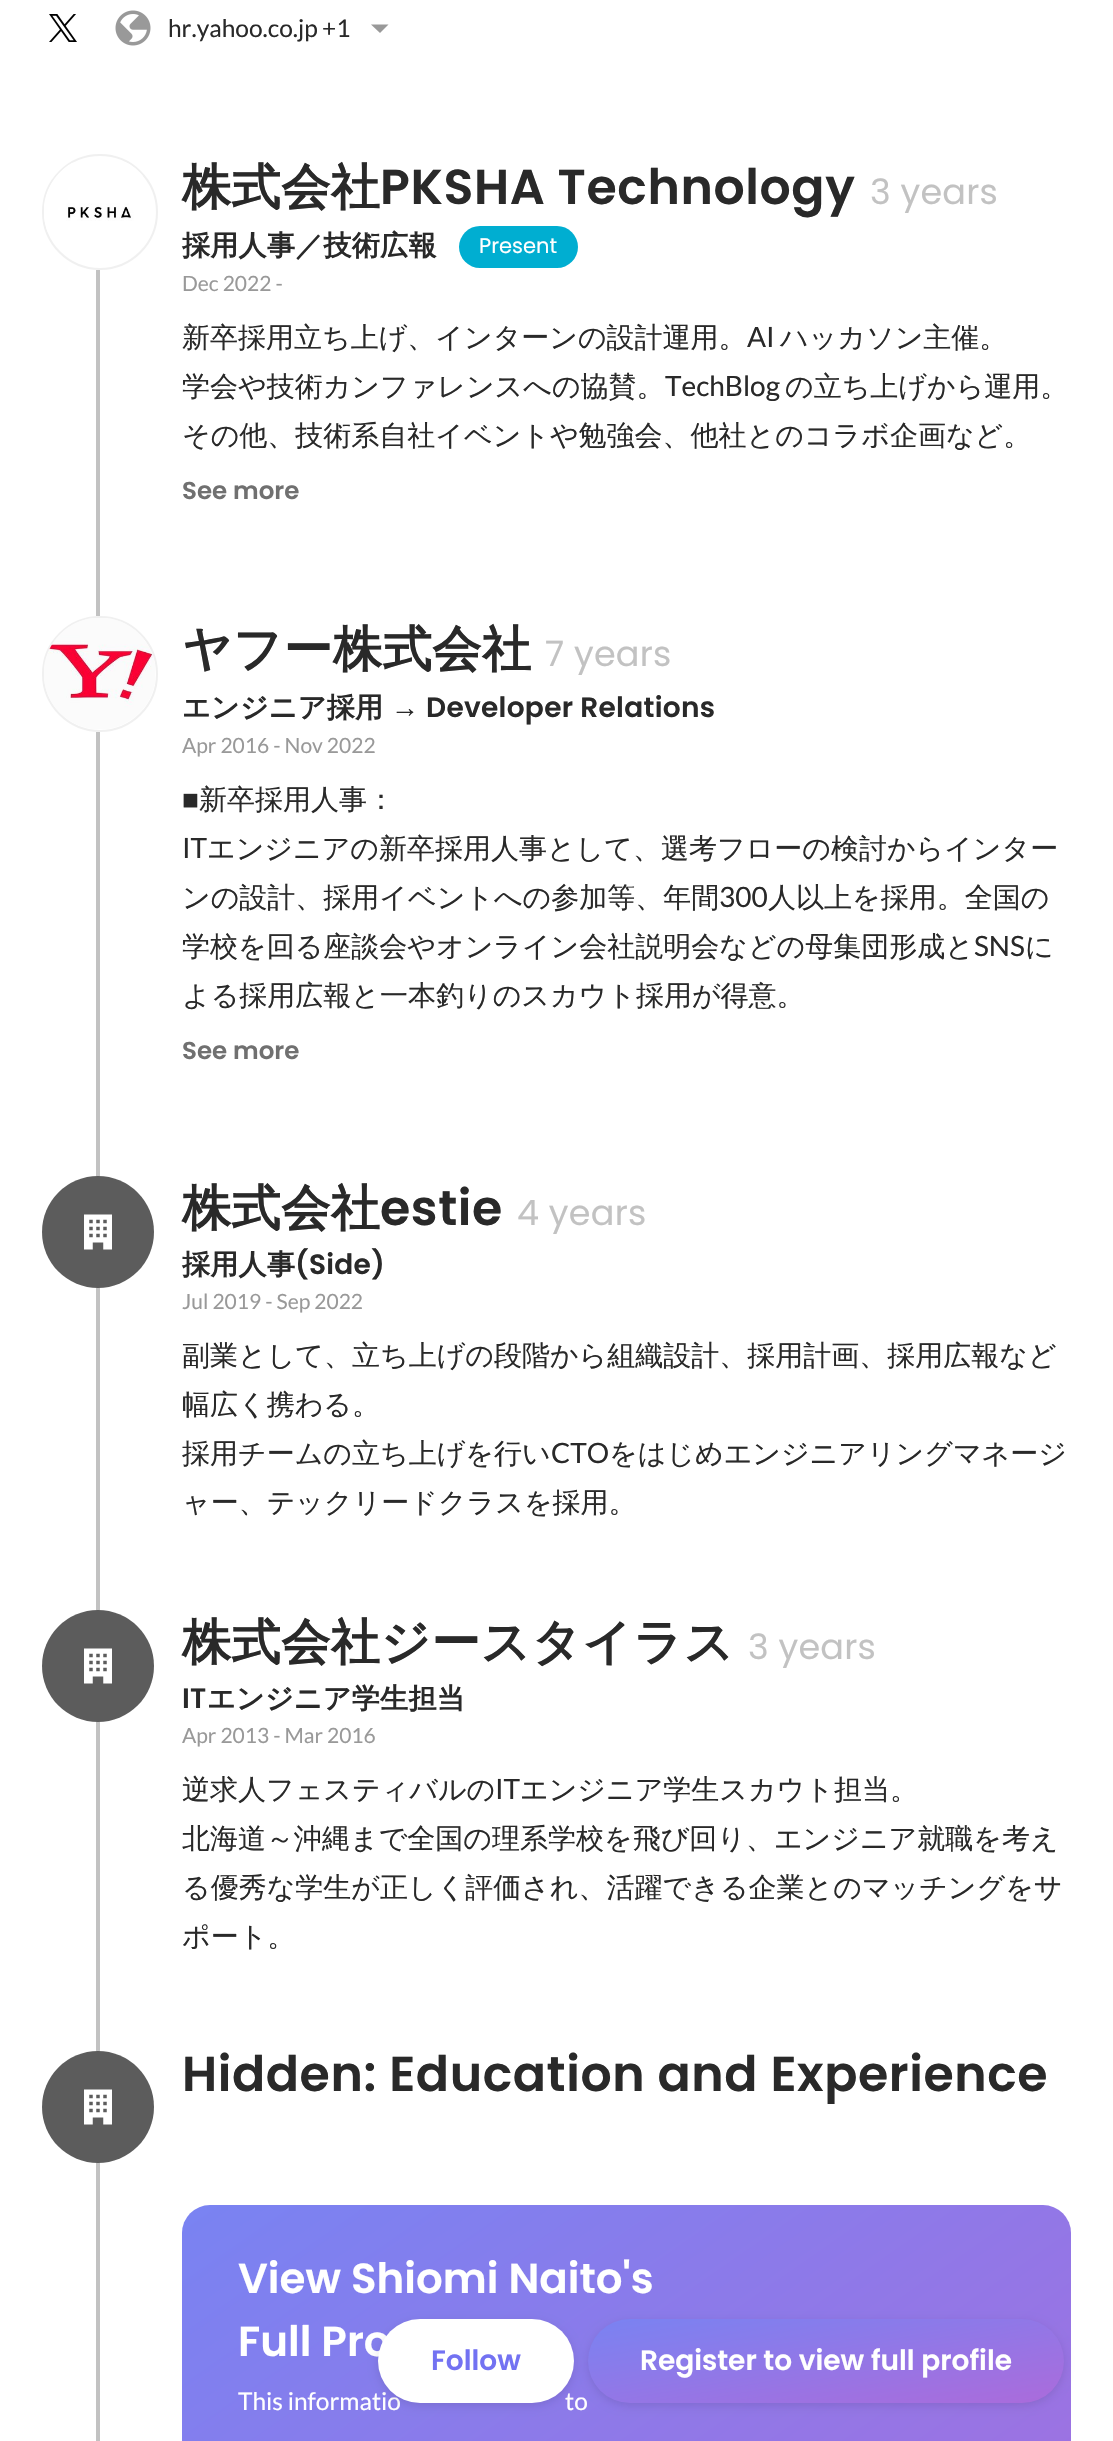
void draw(SkCanvas* c) {
SkPaint p;
p.setAntiAlias(true);
auto F=[&](const char* family, int weight, float size, bool italic = false){SkFontStyle style(weight, SkFontStyle::kNormal_Width,italic ? SkFontStyle::kItalic_Slant : SkFontStyle::kUpright_Slant);SkFont result(fontMgr->matchFamilyStyle(family, style), size);result.setSubpixel(true);return result;};
auto T=[&](const char* s, float x, float y, const SkFont& font){c->drawString(s, x, y, font, p);};
auto L=[&](const char* s, float x, float y, const SkFont& font, const SkPaint& ink, float letter, float word){std::vector<SkGlyphID> glyphs(font.countText(s, strlen(s), SkTextEncoding::kUTF8));std::vector<float> xs(glyphs.size());font.textToGlyphs(s, strlen(s), SkTextEncoding::kUTF8, glyphs);font.getXPos(glyphs, xs, x);float extra = 0;for (size_t i = 0; i < glyphs.size(); i++) {xs[i] += extra;extra += letter + word * (glyphs[i] == font.unicharToGlyph(' '));}c->drawTextBlob(SkTextBlob::MakeFromPosHGlyphs(glyphs, xs, y, font), 0, 0, ink);};
auto R=[&](float x, float y, float w, float h){c->drawRect(SkRect::MakeXYWH(x, y, w, h), p);};
auto Q=[&](float x, float y, float w, float h, float radius){c->drawRoundRect(SkRect::MakeXYWH(x, y, w, h), radius, radius, p);};
auto I=[&](const char* path, float x, float y, float w, float h){auto image = SkImages::DeferredFromEncodedData(SkData::MakeFromFileName(path));c->drawImageRect(image, SkRect::MakeXYWH(x, y, w, h), SkSamplingOptions());};
auto P=[&](const char* data, bool evenOdd = false){SkPath result = *SkParsePath::FromSVGString(data);if (evenOdd) result.setFillType(SkPathFillType::kEvenOdd);return result;};
c->clear(0xffffffff);
I("1.png",49,14,28,28);
I("2.png",115,10,36,36);
auto f1 = F("Lato",400,24.5);
p.setColor(0xff292929);
T("hr.yahoo.co.jp",168,37,f1);
T("+1",322,37,f1);
p.setColor(0xff999999);
c->drawPath(P("M380 33l-9-8.5h17.5z",true),p);
p.setColor(0xffc2c2c2);
R(96,270,4,346);
p.setStroke(true);
p.setStrokeWidth(2);
p.setColor(0xfff0f0f0);
c->drawCircle(100,212,57,p);
I("3.png",44,162,99,70);
auto f2 = F("WenQuanYi Zen Hei",700,49);
p.setStroke(false);
p.setColor(0xff292929);
L("株式会社",182,204,f2,p,.6,0);
auto f3 = F("Poppins",600,49);
L("PKSHA Technology",380,204,f3,p,.6,0);
auto f4 = F("Poppins",400,35);
p.setColor(0xffc2c2c2);
L("3 years",870,204,f4,p,.25,0);
auto f5 = F("WenQuanYi Zen Hei",700,28);
p.setColor(0xff292929);
L("採用人事／技術広報",182,255,f5,p,.3,0);
p.setColor(0xff00aed1);
Q(459,226,119,42,21);
auto f6 = F("Poppins",400,21);
p.setColor(0xffffffff);
T("Present",479,253,f6);
auto f7 = F("Lato",400,21);
p.setColor(0xff999999);
T("Dec 2022 -",182,291,f7);
auto f8 = F("WenQuanYi Zen Hei",500,28);
p.setColor(0xff292929);
T("新卒採用立ち上げ、インターンの設計運用。",182,347,f8);
auto f9 = F("Lato",400,28);
T("AI",747,347,f9);
T("ハッカソン主催。",780,347,f8);
T("学会や技術カンファレンスへの協賛。",182,396,f8);
T("TechBlog",665,396,f9);
T("の立ち上げから運用。",785,396,f8);
T("その他、技術系自社イベントや勉強会、他社とのコラボ企画など。",182,445,f8);
auto f10 = F("Poppins",600,24.5);
p.setColor(0xff707070);
T("See more",182,499,f10);
p.setColor(0xffc2c2c2);
R(96,732,4,1709);
p.setStroke(true);
p.setColor(0xfff0f0f0);
c->drawCircle(100,674,57,p);
I("4.png",44,618,111,111);
p.setStroke(false);
p.setColor(0xff292929);
L("ヤフー株式会社",182,666,f2,p,.6,0);
p.setColor(0xffc2c2c2);
L("7 years",545,666,f4,p,.25,0);
p.setColor(0xff292929);
L("エンジニア採用",182,717,f5,p,.3,0);
auto f11 = F("Liberation Sans",700,28);
L("→",391,717,f11,p,.3,0);
auto f12 = F("Poppins",600,28);
L("Developer Relations",426,717,f12,p,.3,0);
p.setColor(0xff999999);
T("Apr 2016 - Nov 2022",182,753,f7);
auto f13 = F("Liberation Sans",400,28);
p.setColor(0xff292929);
T("■",182,809,f13);
T("新卒採用人事：",199,809,f8);
T("IT",182,858,f9);
T("エンジニアの新卒採用人事として、選考フローの検討からインター",207,858,f8);
T("ンの設計、採用イベントへの参加等、年間",182,907,f8);
T("300",719,907,f9);
T("人以上を採用。全国の",768,907,f8);
T("学校を回る座談会やオンライン会社説明会などの母集団形成と",182,956,f8);
T("SNS",974,956,f9);
T("に",1025,956,f8);
T("よる採用広報と一本釣りのスカウト採用が得意。",182,1005,f8);
p.setColor(0xff707070);
T("See more",182,1059,f10);
p.setColor(0xff5c5c5c);
c->drawCircle(98,1232,56,p);
I("5.png",84,1214,28,36);
p.setColor(0xff292929);
L("株式会社",182,1225,f2,p,.6,0);
L("estie",380,1225,f3,p,.6,0);
p.setColor(0xffc2c2c2);
L("4 years",517,1225,f4,p,.25,0);
p.setColor(0xff292929);
L("採用人事",182,1274,f5,p,.3,0);
L("(Side)",295,1274,f12,p,.3,0);
p.setColor(0xff999999);
T("Jul 2019 - Sep 2022",182,1309,f7);
p.setColor(0xff292929);
T("副業として、立ち上げの段階から組織設計、採用計画、採用広報など",182,1365,f8);
T("幅広く携わる。",182,1414,f8);
T("採用チームの立ち上げを行い",182,1463,f8);
T("CTO",551,1463,f9);
T("をはじめエンジニアリングマネージ",609,1463,f8);
T("ャー、テックリードクラスを採用。",182,1512,f8);
p.setColor(0xff5c5c5c);
c->drawCircle(98,1666,56,p);
I("5.png",84,1648,28,36);
p.setColor(0xff292929);
L("株式会社ジースタイラス",182,1659,f2,p,.6,0);
p.setColor(0xffc2c2c2);
L("3 years",748,1659,f4,p,.25,0);
p.setColor(0xff292929);
L("IT",182,1708,f12,p,.3,0);
L("エンジニア学生担当",207,1708,f5,p,.3,0);
p.setColor(0xff999999);
T("Apr 2013 - Mar 2016",182,1743,f7);
p.setColor(0xff292929);
T("逆求人フェスティバルの",182,1799,f8);
T("IT",495,1799,f9);
T("エンジニア学生スカウト担当。",520,1799,f8);
T("北海道～沖縄まで全国の理系学校を飛び回り、エンジニア就職を考え",182,1848,f8);
T("る優秀な学生が正しく評価され、活躍できる企業とのマッチングをサ",182,1897,f8);
T("ポート。",182,1946,f8);
p.setColor(0xff5c5c5c);
c->drawCircle(98,2107,56,p);
I("5.png",84,2089,28,36);
p.setColor(0xff292929);
L("Hidden: Education and Experience",182,2091,f3,p,.6,0);
{
const SkColor colors[] = {0xff7983f2,0xffab6bdb};
const float stops[] = {0,1};
const SkPoint ends[] = {{338,2097}, {915,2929}};
p.setShader(SkGradientShader::MakeLinear(ends, colors, stops, 2, SkTileMode::kClamp));
p.setAlpha(255);
}
Q(182,2205,889,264,28);
auto f14 = F("Poppins",600,42);
p.setShader(nullptr);
p.setColor(0xffffffff);
T("View Shiomi Naito's",238,2293,f14);
T("Full Pro",238,2356,f14);
T("This informatio",238,2410,f1);
T("to",565,2410,f1);
p.setColor(0x1a000000);
p.setMaskFilter(SkMaskFilter::MakeBlur(kNormal_SkBlurStyle, 5));
c->drawRoundRect(SkRect::MakeXYWH(378,2322,196,84),42,42,p);
p.setMaskFilter(nullptr);
p.setColor(0xffffffff);
Q(378,2319,196,84,42);
p.setColor(0xff7372f2);
T("Follow",431,2370,f12);
p.setColor(0x1a000000);
p.setMaskFilter(SkMaskFilter::MakeBlur(kNormal_SkBlurStyle, 5));
c->drawRoundRect(SkRect::MakeXYWH(588,2322,476,84),42,42,p);
p.setMaskFilter(nullptr);
{
const SkColor colors[] = {0xff7983f2,0xffab6bdb};
const float stops[] = {0,1};
const SkPoint ends[] = {{812,2279}, {840,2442}};
p.setShader(SkGradientShader::MakeLinear(ends, colors, stops, 2, SkTileMode::kClamp));
p.setAlpha(255);
}
Q(588,2319,476,84,42);
p.setShader(nullptr);
p.setColor(0xffffffff);
T("Register to view full profile",640,2370,f12);
}
